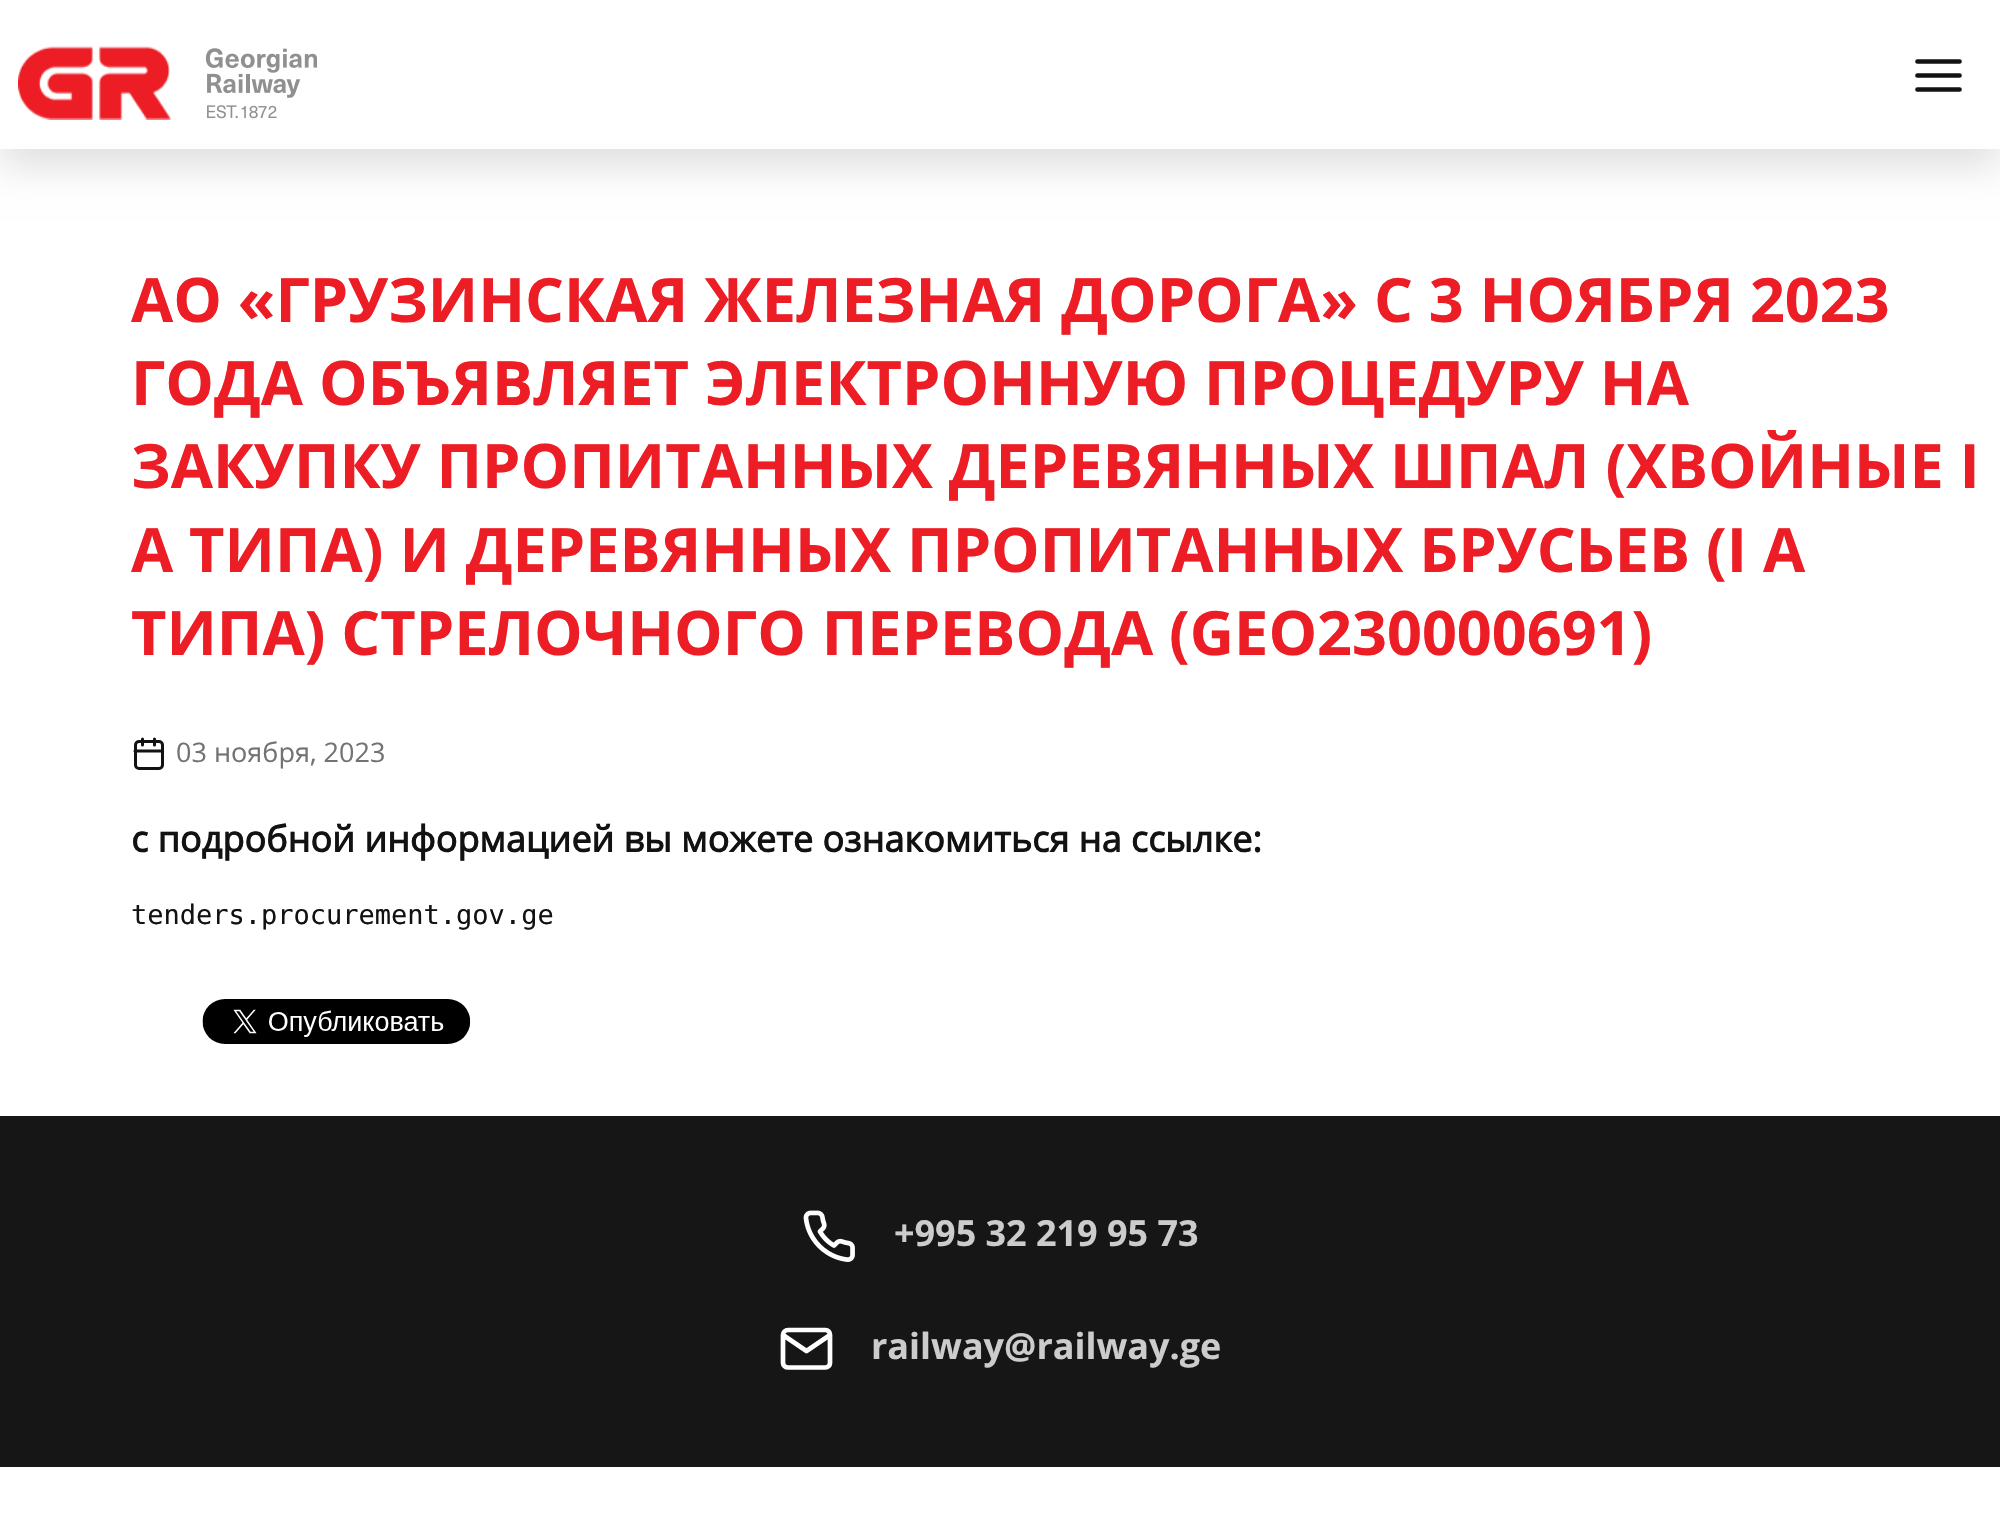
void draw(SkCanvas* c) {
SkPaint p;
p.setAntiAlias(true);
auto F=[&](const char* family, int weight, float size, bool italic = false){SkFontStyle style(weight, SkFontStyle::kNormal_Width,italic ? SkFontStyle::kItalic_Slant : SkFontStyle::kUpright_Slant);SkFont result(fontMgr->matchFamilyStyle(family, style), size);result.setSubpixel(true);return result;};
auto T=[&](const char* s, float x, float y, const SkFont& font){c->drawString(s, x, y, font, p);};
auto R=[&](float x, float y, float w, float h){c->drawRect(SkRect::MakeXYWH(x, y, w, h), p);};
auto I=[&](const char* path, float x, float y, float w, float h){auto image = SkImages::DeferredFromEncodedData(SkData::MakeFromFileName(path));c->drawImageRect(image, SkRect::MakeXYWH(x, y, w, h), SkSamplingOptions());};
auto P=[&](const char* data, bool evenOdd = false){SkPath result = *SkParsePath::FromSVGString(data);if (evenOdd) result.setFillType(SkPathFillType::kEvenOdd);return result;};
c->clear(0xffffffff);
p.setColor(0x1f000000);
p.setMaskFilter(SkMaskFilter::MakeBlur(kNormal_SkBlurStyle, 18));
c->drawRect(SkRect::MakeXYWH(0,18,2000,149),p);
p.setMaskFilter(nullptr);
p.setColor(0xffffffff);
R(0,0,2000,149);
I("1.png",18,46,153,74);
I("2.png",205,48,112,71);
p.setStroke(true);
p.setStrokeWidth(4.7);
p.setStrokeCap(SkPaint::kRound_Cap);
p.setStrokeJoin(SkPaint::kRound_Join);
p.setColor(0xff121212);
c->drawPath(P("M1917.5 75.5h42m-42-14h42m-42 28h42"),p);
auto f1 = F("Open Sans",700,61.2);
p.setStroke(false);
p.setColor(0xffec1d25);
T("АО «ГРУЗИНСКАЯ ЖЕЛЕЗНАЯ ДОРОГА» С 3 НОЯБРЯ 2023",131,322,f1);
T("ГОДА ОБЪЯВЛЯЕТ ЭЛЕКТРОННУЮ ПРОЦЕДУРУ НА",131,405,f1);
T("ЗАКУПКУ ПРОПИТАННЫХ ДЕРЕВЯННЫХ ШПАЛ (ХВОЙНЫЕ I",131,488,f1);
T("А ТИПА) И ДЕРЕВЯННЫХ ПРОПИТАННЫХ БРУСЬЕВ (I А",131,572,f1);
T("ТИПА) СТРЕЛОЧНОГО ПЕРЕВОДА (GEO230000691)",131,655,f1);
p.setStroke(true);
p.setStrokeWidth(3);
p.setStrokeCap(SkPaint::kButt_Cap);
p.setStrokeJoin(SkPaint::kMiter_Join);
p.setColor(0xff121212);
c->drawRoundRect(SkRect::MakeXYWH(135.5,741.5,27,27),3.5,3.5,p);
p.setStrokeCap(SkPaint::kRound_Cap);
p.setStrokeJoin(SkPaint::kRound_Join);
c->drawPath(P("M154.5 739v6m-12-6v6m-7.5 6h27"),p);
auto f2 = F("Open Sans",400,27);
p.setStroke(false);
p.setColor(0xff737373);
T("03 ноября, 2023",176,762,f2);
auto f3 = F("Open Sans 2",700,36);
p.setColor(0xff121212);
T("с подробной информацией вы можете ознакомиться на ссылке:",131,852,f3);
auto f4 = F("DejaVu Sans Mono",400,27);
T("tenders.procurement.gov.ge",131,924,f4);
I("3.png",202,999,269,45);
p.setColor(0xff161616);
R(0,1116,2000,351);
I("4.png",803,1210,52,52);
auto f5 = F("Open Sans",700,36);
p.setColor(0xffcccccc);
T("+995 32 219 95 73",894,1246,f5);
T("railway@railway.ge",871,1359,f5);
p.setStroke(true);
p.setStrokeWidth(4.7);
p.setColor(0xffffffff);
c->drawPath(P("M788 1330h37.5c2.5 0 4.5 2 4.5 5v28c0 2.5-2 4.5-4.5 4.5h-37.5c-2.5 0-5-2-5-4.5v-28c0-3 2.5-5 5-5zm42 5l-23.5 16l-23.5-16"),p);
}
